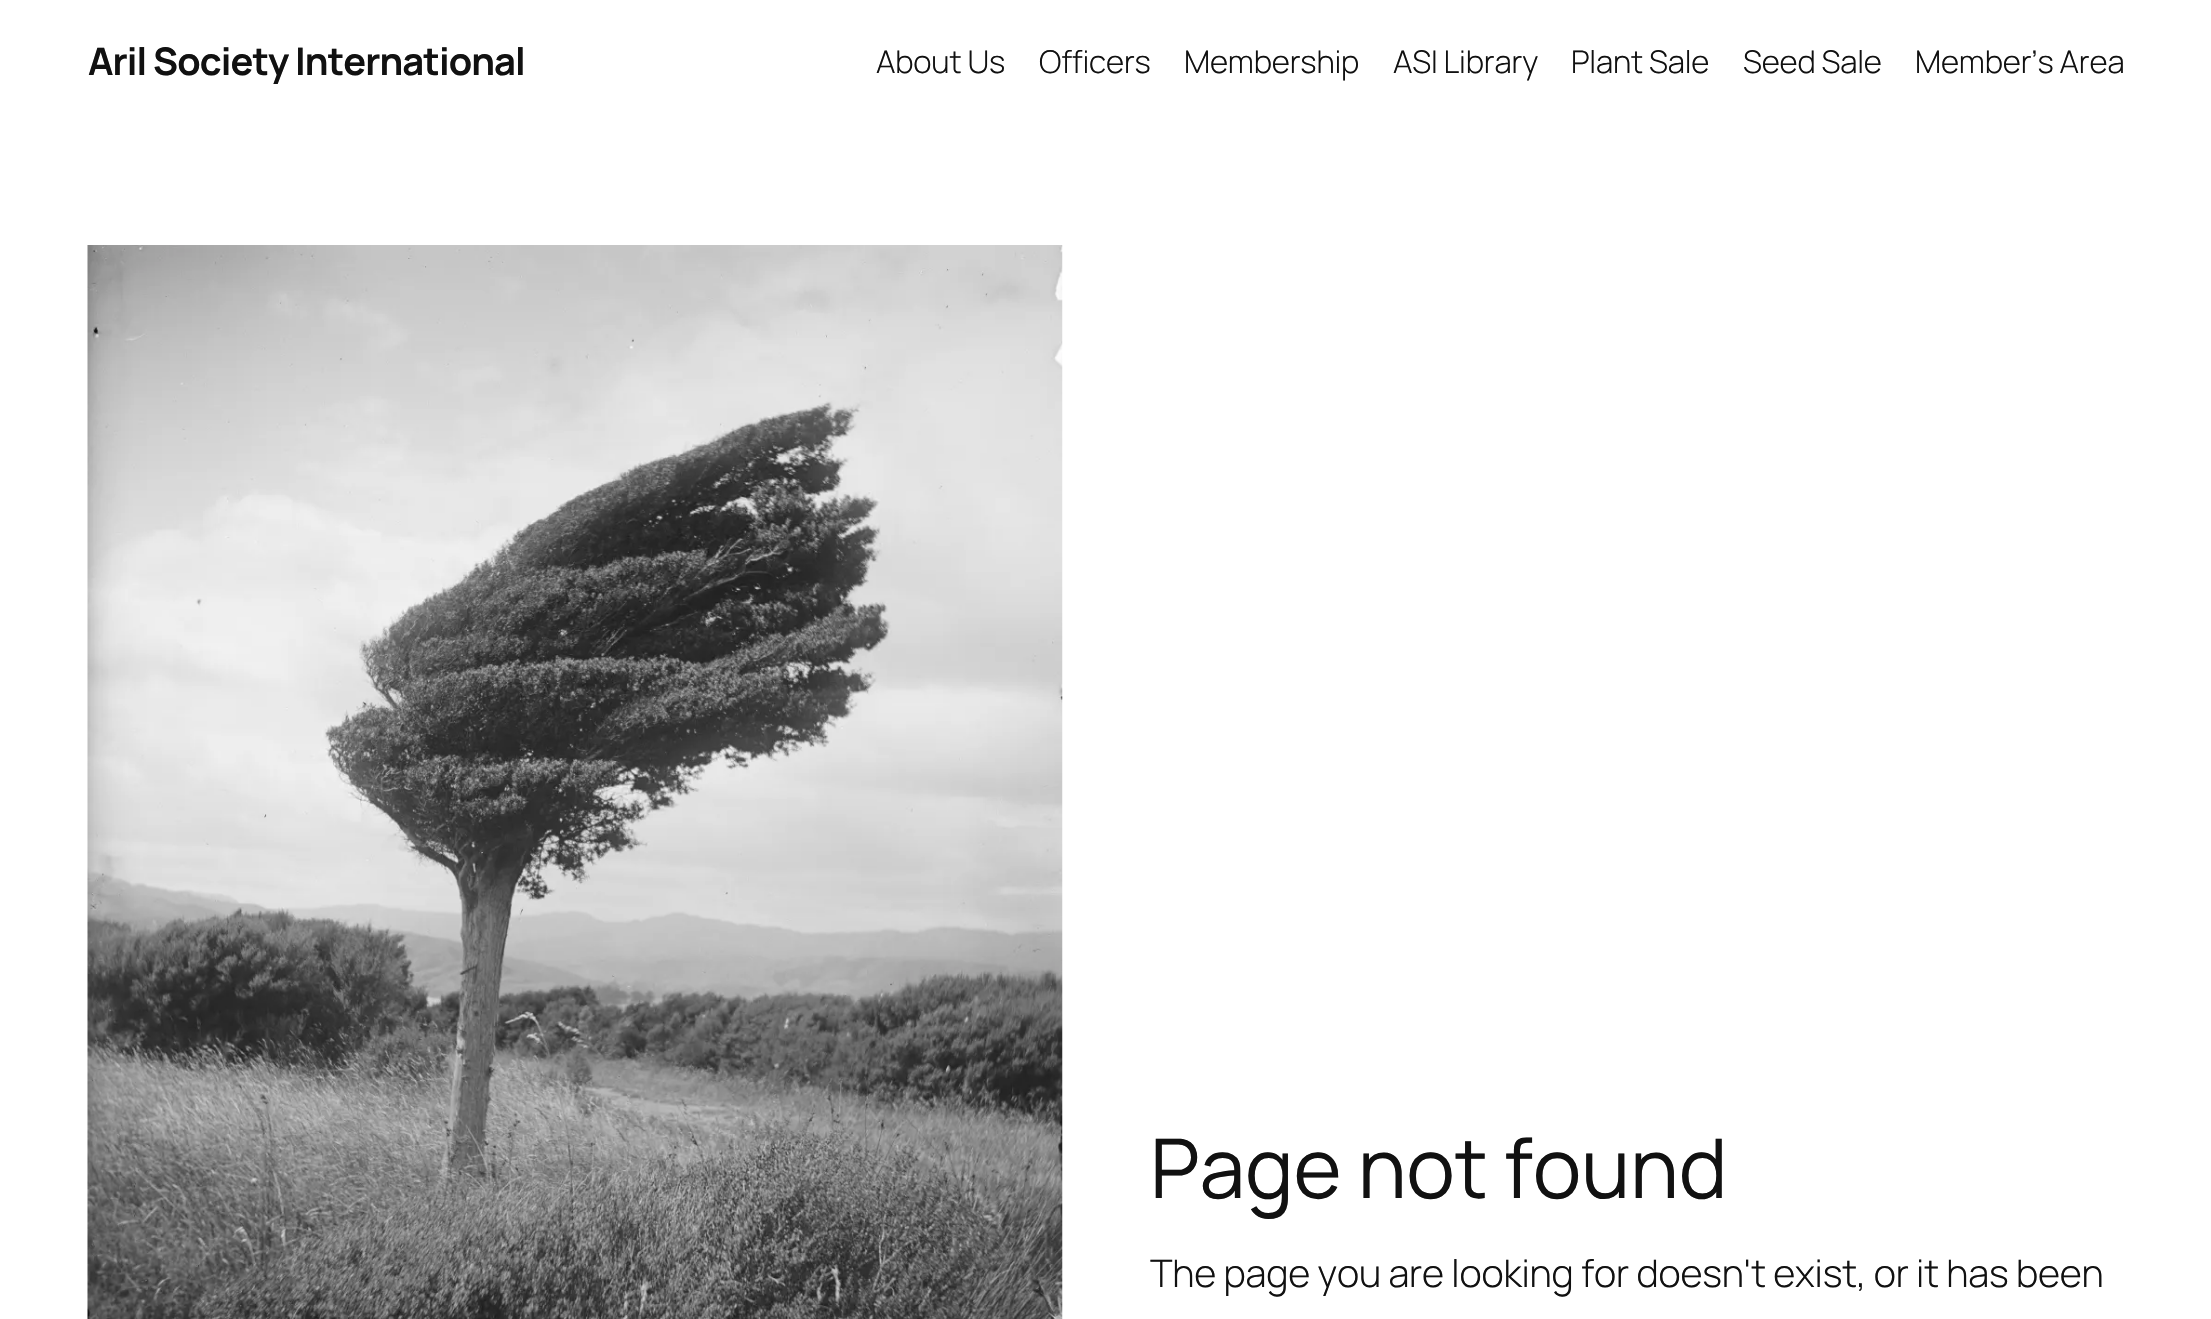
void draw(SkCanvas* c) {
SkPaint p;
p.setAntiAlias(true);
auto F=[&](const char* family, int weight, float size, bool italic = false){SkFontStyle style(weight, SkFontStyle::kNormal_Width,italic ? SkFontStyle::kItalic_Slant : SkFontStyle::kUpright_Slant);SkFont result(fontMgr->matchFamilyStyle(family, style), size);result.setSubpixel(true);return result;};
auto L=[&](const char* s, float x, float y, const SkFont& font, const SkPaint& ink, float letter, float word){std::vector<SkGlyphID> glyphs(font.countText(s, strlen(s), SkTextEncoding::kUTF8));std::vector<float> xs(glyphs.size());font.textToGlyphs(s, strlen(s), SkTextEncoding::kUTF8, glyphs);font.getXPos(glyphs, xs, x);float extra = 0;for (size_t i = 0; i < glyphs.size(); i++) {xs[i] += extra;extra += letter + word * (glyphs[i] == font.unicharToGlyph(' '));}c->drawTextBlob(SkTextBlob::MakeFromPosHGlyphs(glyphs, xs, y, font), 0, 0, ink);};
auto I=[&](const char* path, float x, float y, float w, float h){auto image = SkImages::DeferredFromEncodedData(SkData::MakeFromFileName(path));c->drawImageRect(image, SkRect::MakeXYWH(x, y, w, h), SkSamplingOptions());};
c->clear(0xffffffff);
auto f1 = F("Manrope",700,38);
p.setColor(0xff111111);
L("Aril Society International",88,75,f1,p,-.9,0);
auto f2 = F("Manrope",300,31.25);
L("About Us",876,73,f2,p,-.18,0);
L("Officers",1039,73,f2,p,-.18,0);
L("Membership",1184,73,f2,p,-.18,0);
L("ASI Library",1393,73,f2,p,-.18,0);
L("Plant Sale",1571,73,f2,p,-.18,0);
L("Seed Sale",1743,73,f2,p,-.18,0);
L("Member’s Area",1915,73,f2,p,-.18,0);
I("1.png",87,245,976,1074);
auto f3 = F("Manrope",400,82.25);
L("Page not found",1150,1198,f3,p,-.18,0);
auto f4 = F("Manrope",300,38);
L("The page you are looking for doesn't exist, or it has been",1150,1287,f4,p,-.18,0);
}
